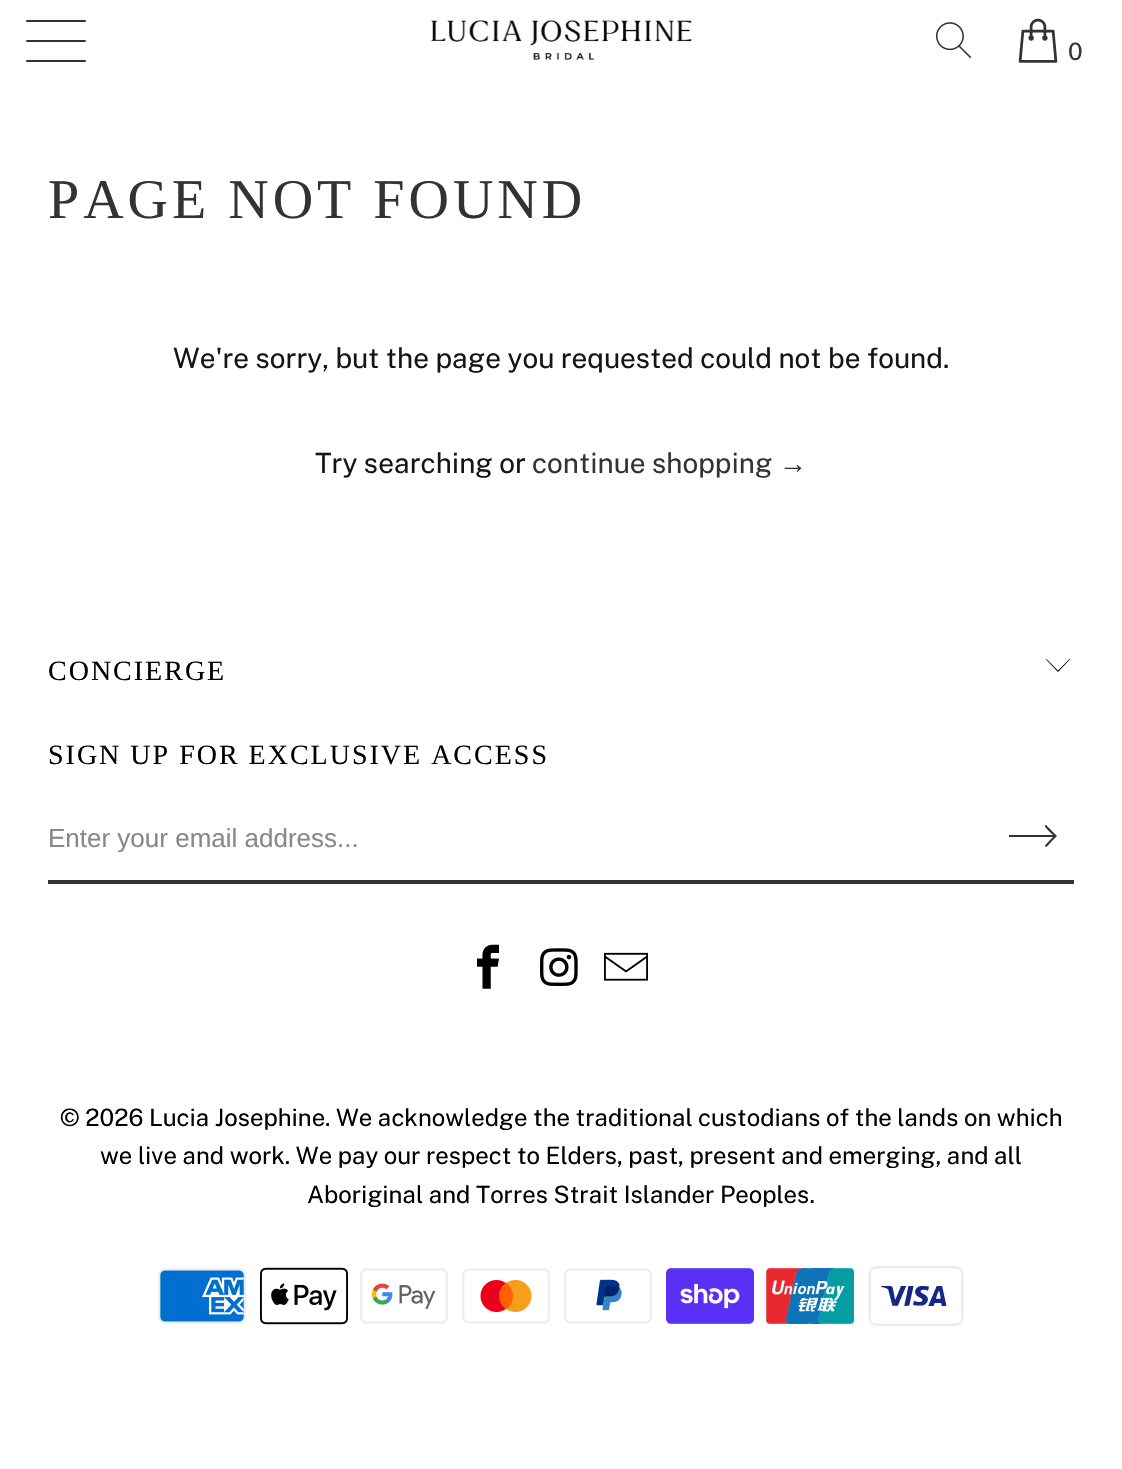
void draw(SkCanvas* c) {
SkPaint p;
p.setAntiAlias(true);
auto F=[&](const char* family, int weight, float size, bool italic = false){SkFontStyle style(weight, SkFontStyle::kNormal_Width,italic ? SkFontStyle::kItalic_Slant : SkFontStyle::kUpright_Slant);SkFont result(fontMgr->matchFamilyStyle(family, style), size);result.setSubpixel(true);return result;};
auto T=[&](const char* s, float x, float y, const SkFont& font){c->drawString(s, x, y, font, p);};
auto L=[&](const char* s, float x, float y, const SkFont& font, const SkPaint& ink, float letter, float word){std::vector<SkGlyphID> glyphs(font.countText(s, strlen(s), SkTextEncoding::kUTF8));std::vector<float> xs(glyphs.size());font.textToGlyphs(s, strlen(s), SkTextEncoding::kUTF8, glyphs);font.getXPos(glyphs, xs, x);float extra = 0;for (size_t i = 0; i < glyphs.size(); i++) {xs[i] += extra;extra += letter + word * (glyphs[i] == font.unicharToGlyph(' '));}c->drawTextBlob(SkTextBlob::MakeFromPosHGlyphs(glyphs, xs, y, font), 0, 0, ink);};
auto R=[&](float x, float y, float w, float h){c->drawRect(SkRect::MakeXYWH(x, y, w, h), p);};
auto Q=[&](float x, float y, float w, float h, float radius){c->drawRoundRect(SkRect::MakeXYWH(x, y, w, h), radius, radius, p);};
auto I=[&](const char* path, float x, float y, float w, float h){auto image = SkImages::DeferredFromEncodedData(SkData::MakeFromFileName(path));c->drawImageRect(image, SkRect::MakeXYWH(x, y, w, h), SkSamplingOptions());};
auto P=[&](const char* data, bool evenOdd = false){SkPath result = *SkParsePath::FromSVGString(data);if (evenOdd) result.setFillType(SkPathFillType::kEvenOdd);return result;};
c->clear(0xffffffff);
p.setColor(0xff333333);
Q(26,20,60,2,1);
Q(26,40,60,2,1);
Q(26,60,60,2,1);
I("1.png",430,20,262,41);
I("2.png",935,22,37,37);
I("3.png",1018,18,40,45);
auto f1 = F("Public Sans",400,24);
L("0",1068,60,f1,p,2,0);
auto f2 = F("Liberation Serif",400,56);
L("PAGE NOT FOUND",48,218,f2,p,4,0);
auto f3 = F("Public Sans",400,28);
p.setColor(0xff151515);
T("We're sorry, but the page you requested could not be found.",173,368,f3);
T("Try searching or",315,473,f3);
p.setColor(0xff333333);
T("continue shopping",532,473,f3);
auto f4 = F("Liberation Serif",400,28);
T("→",779,473,f4);
p.setColor(0xff000000);
L("CONCIERGE",48,680,f4,p,2,0);
c->drawPath(P("M1058 672l-12-12.5l.5-.5l11.5 11.5l11.5-11.5l.5 .5z"),p);
L("SIGN UP FOR EXCLUSIVE ACCESS",48,764,f4,p,2,0);
p.setColor(0xff333333);
R(48,880,1026,4);
c->save();
c->clipRect(SkRect::MakeXYWH(48,822,1026,30));
auto f5 = F("Liberation Sans",400,26);
p.setColor(0xff888888);
T("Enter your email address...",48,847,f5);
c->restore();
p.setColor(0xff333333);
c->drawPath(P("M1046 825c-4 0 3 6 7 10h-44v2h44c-1 1-8 8-8 9c1 3 5-3 5-3l7-7z"),p);
I("4.png",477,944,22,45);
I("5.png",540,948,38,38);
I("6.png",604,952,44,29);
p.setColor(0xff000000);
T("© 2026 Lucia Josephine",60,1126,f1);
T(". We acknowledge the traditional custodians of the lands on which",325,1126,f1);
T("we live and work. We pay our respect to Elders, past, present and emerging, and all",100,1164,f1);
T("Aboriginal and Torres Strait Islander Peoples.",307,1203,f1);
I("7.png",158,1268,88,56);
I("8.png",260,1267,88,58);
I("9.png",360,1268,88,56);
I("10.png",462,1268,88,56);
I("11.png",564,1268,88,56);
I("12.png",666,1268,88,56);
I("13.png",766,1268,88,56);
I("14.png",868,1266,96,60);
}
